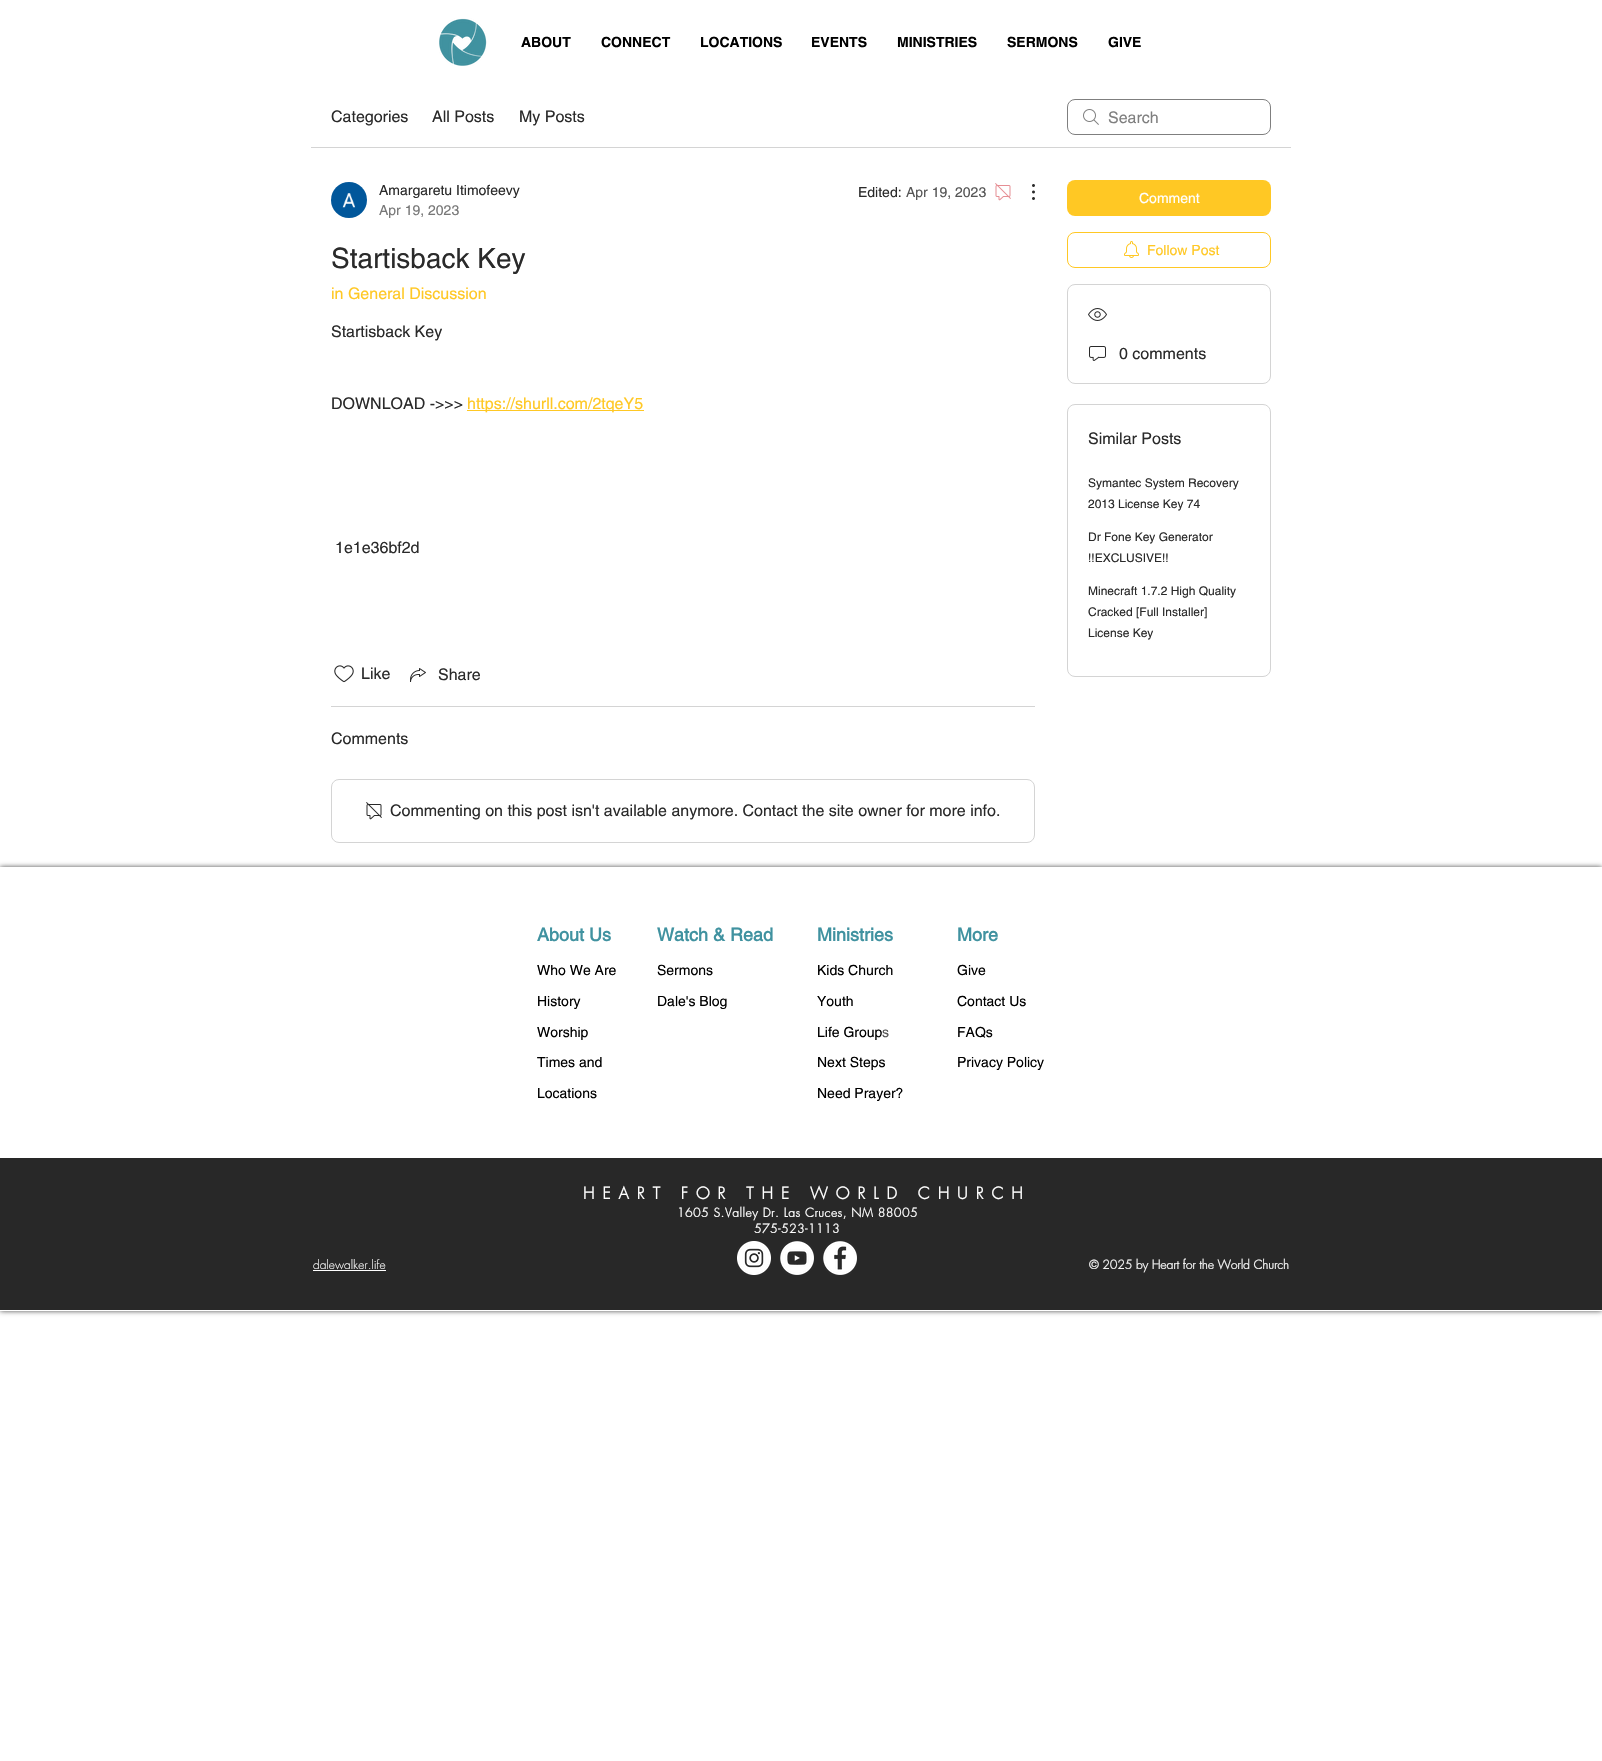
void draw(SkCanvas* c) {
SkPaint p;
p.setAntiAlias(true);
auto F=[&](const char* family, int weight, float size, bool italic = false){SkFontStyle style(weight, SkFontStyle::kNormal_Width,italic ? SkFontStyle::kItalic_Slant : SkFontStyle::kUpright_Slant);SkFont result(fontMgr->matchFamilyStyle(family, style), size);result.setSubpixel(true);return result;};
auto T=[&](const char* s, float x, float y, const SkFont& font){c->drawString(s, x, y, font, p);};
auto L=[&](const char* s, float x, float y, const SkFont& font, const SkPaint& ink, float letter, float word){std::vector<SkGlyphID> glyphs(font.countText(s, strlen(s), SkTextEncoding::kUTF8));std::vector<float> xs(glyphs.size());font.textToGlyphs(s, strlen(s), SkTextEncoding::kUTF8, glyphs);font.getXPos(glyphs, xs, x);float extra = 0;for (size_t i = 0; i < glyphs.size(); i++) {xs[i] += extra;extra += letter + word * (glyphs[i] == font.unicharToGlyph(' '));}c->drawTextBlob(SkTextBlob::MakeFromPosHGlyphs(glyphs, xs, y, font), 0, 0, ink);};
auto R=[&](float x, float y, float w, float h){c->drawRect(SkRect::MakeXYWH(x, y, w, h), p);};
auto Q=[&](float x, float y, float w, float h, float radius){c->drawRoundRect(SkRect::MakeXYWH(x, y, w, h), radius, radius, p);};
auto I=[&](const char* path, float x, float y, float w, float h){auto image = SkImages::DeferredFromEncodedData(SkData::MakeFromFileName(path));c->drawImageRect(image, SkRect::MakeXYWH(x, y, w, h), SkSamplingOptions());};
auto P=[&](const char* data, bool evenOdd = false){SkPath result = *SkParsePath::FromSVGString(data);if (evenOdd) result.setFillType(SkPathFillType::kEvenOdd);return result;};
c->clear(0xffffffff);
I("1.png",439,18,48,48);
auto f1 = F("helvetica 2",700,14);
p.setColor(0xff000000);
T("ABOUT",521,47,f1);
T("CONNECT",601,47,f1);
T("LOCATIONS",700,47,f1);
T("EVENTS",811,47,f1);
T("MINISTRIES",897,47,f1);
T("SERMONS",1007,47,f1);
T("GIVE",1108,47,f1);
p.setColor(0xffd4d4d4);
R(311,147,980,1);
auto f2 = F("helvetica",400,16);
p.setColor(0xff2a2a2a);
T("Categories",331,122,f2);
T("All Posts",432,122,f2);
T("My Posts",519,122,f2);
I("2.png",1083,109,16,16);
p.setStroke(true);
p.setStrokeWidth(1);
p.setColor(0xff7f7f7f);
c->drawRoundRect(SkRect::MakeXYWH(1067.5,99.5,203,35),7.5,7.5,p);
p.setStroke(false);
T("Search",1108,123,f2);
I("3.png",331,182,36,36);
auto f3 = F("helvetica",400,14);
p.setColor(0xff2a2a2a);
T("Amargaretu Itimofeevy",379,195,f3);
p.setColor(0xff777777);
T("Apr 19, 2023",379,215,f3);
p.setColor(0xff2a2a2a);
T("Edited:",858,197,f3);
p.setColor(0xff555555);
T("Apr 19, 2023",906,197,f3);
I("4.png",995,183,16,18);
I("5.png",1032,184,3,16);
auto f4 = F("helvetica",400,28);
p.setColor(0xff2a2a2a);
T("Startisback Key",331,268,f4);
p.setColor(0xffffc824);
T("in General Discussion",331,299,f2);
p.setColor(0xff2a2a2a);
T("Startisback Key",331,337,f2);
T("DOWNLOAD ->>>",331,409,f2);
p.setColor(0xffffc824);
R(467,410,177,1);
T("https://shurll.com/2tqeY5",467,409,f2);
p.setColor(0xff2a2a2a);
T("1e1e36bf2d",335,553,f2);
I("6.png",334,665,20,18);
T("Like",361,679,f2);
I("7.png",410,668,16,14);
T("Share",438,680,f2);
p.setColor(0xffd4d4d4);
R(331,706,704,1);
p.setColor(0xff2a2a2a);
T("Comments",331,744,f2);
p.setStroke(true);
p.setColor(0xffd4d4d4);
c->drawRoundRect(SkRect::MakeXYWH(331.5,779.5,703,63),7.5,7.5,p);
I("8.png",366,802,16,18);
p.setStroke(false);
p.setColor(0xff2a2a2a);
T("Commenting on this post isn't available anymore. Contact the site owner for more info.",390,816,f2);
p.setColor(0xffffc824);
Q(1067,180,204,36,8);
p.setColor(0xffffffff);
T("Comment",1139,203,f3);
p.setStroke(true);
p.setColor(0xffffc824);
c->drawRoundRect(SkRect::MakeXYWH(1067.5,232.5,203,35),7.5,7.5,p);
I("9.png",1124,241,15,17);
p.setStroke(false);
T("Follow Post",1147,255,f3);
p.setStroke(true);
p.setColor(0xffd4d4d4);
c->drawRoundRect(SkRect::MakeXYWH(1067.5,284.5,203,99),7.5,7.5,p);
I("10.png",1088,308,19,13);
I("11.png",1089,346,17,15);
p.setStroke(false);
p.setColor(0xff2a2a2a);
T("0 comments",1119,359,f2);
p.setStroke(true);
p.setColor(0xffd4d4d4);
c->drawRoundRect(SkRect::MakeXYWH(1067.5,404.5,203,272),7.5,7.5,p);
p.setStroke(false);
p.setColor(0xff2a2a2a);
T("Similar Posts",1088,444,f2);
auto f5 = F("helvetica",400,12);
T("Symantec System Recovery",1088,487,f5);
T("2013 License Key 74",1088,508,f5);
T("Dr Fone Key Generator",1088,541,f5);
T("!!EXCLUSIVE!!",1088,562,f5);
T("Minecraft 1.7.2 High Quality",1088,595,f5);
T("Cracked [Full Installer]",1088,616,f5);
T("License Key",1088,637,f5);
c->save();
c->clipPath(P("M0 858h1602v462h-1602zm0 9h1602v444h-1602z",true),true);
p.setColor(0xb3000000);
p.setMaskFilter(SkMaskFilter::MakeBlur(kNormal_SkBlurStyle, 2.5));
c->drawRect(SkRect::MakeXYWH(0,867,1602,444),p);
p.setMaskFilter(nullptr);
c->restore();
auto f6 = F("helvetica",700,18);
p.setColor(0xff4092a0);
T("About Us",537,941,f6);
p.setColor(0xff000000);
T("Who We Are",537,975,f3);
T("History",537,1006,f3);
T("Worship",537,1037,f3);
T("Times and",537,1067,f3);
T("Locations",537,1098,f3);
p.setColor(0xff4092a0);
T("Watch & Read",657,941,f6);
p.setColor(0xff000000);
T("Sermons",657,975,f3);
T("Dale's Blog",657,1006,f3);
p.setColor(0xff4092a0);
T("Ministries",817,941,f6);
p.setColor(0xff000000);
T("Kids Church",817,975,f3);
T("Youth",817,1006,f3);
T("Life Group",817,1037,f3);
p.setColor(0xff555555);
T("s",882,1037,f3);
p.setColor(0xff000000);
T("Next Steps",817,1067,f3);
T("Need Prayer?",817,1098,f3);
p.setColor(0xff4092a0);
T("More",957,941,f6);
p.setColor(0xff000000);
T("Give",957,975,f3);
T("Contact Us",957,1006,f3);
T("FAQs",957,1037,f3);
T("Privacy Policy",957,1067,f3);
p.setColor(0xff282828);
R(0,1158,1602,152);
auto f7 = F("futura",700,16);
p.setColor(0xffffffff);
L("HEART FOR THE WORLD CHURCH",583,1199,f7,p,8,0);
auto f8 = F("futura",700,12);
L("1605 S.Valley Dr. Las Cruces, NM 88005",677,1217,f8,p,.6,0);
L("575-523-1113",754,1233,f8,p,.6,0);
auto f9 = F("futura",300,12);
T("dalewalker.life",313,1269,f9);
R(313,1270,73,1);
I("12.png",737,1241,34,34);
I("13.png",780,1241,34,34);
I("14.png",823,1241,34,34);
p.setColor(0xfff1f1f1);
T("© 2025 by Heart for the World Church",1089,1269,f8);
}
